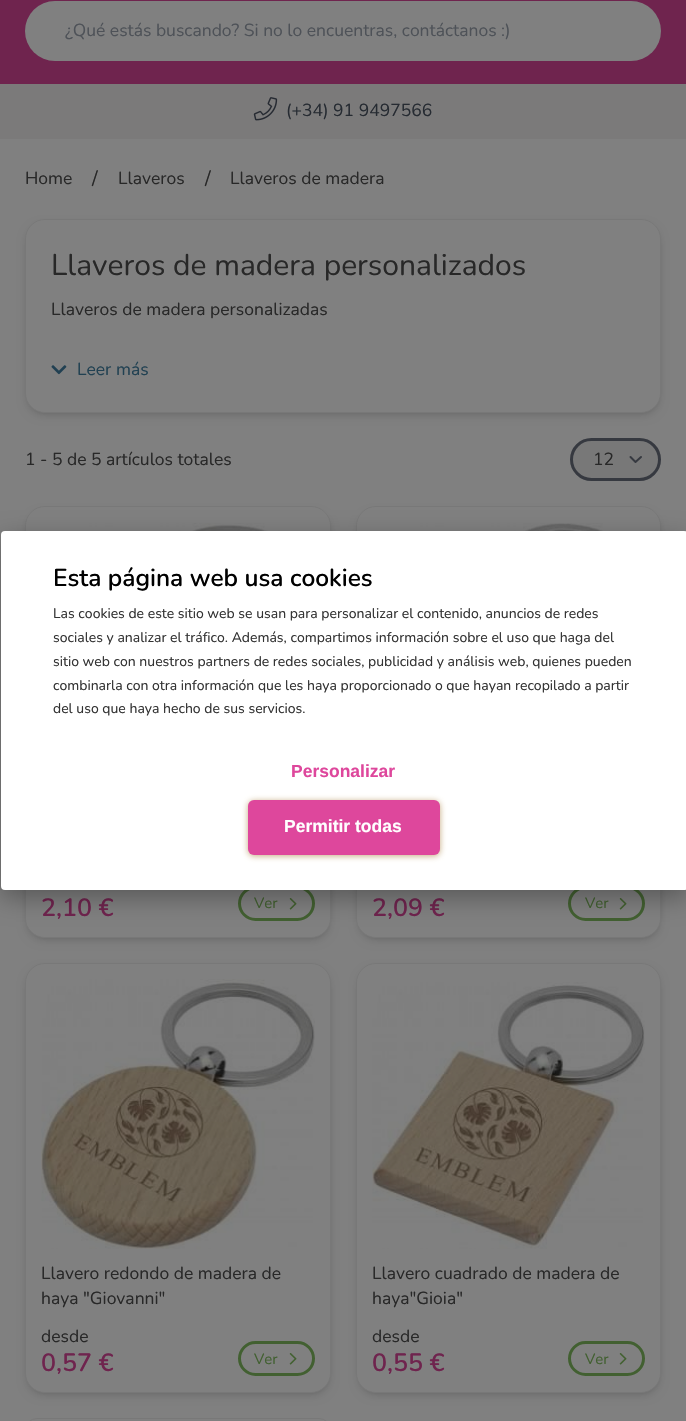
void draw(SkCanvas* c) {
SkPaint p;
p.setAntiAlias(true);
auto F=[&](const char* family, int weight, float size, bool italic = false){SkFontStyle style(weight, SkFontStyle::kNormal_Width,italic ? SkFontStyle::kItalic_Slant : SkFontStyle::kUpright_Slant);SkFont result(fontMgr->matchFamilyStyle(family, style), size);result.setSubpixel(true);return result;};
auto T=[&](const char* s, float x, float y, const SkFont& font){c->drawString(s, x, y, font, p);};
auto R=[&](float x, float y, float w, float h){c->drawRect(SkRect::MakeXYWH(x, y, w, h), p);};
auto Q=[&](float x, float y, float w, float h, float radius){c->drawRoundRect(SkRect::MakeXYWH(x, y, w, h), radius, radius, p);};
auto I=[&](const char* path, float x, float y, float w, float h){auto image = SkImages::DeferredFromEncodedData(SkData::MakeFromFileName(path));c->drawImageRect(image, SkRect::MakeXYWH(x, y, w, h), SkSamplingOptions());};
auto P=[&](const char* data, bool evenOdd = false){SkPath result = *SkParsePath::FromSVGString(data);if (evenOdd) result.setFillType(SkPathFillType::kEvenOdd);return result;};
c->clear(0xff808080);
p.setColor(0xff6f244e);
R(0,0,686,84);
p.setColor(0xff808080);
Q(25,1,636,60,30);
auto f1 = F("Nunito",400,17.5);
p.setColor(0xff4e5258);
T("¿Qué estás buscando? Si no lo encuentras, contáctanos :)",65,36,f1);
p.setColor(0xff7b7a7a);
R(0,84,686,55);
I("1.png",253,97,25,24);
p.setColor(0xff262b32);
T("(+34) 91 9497566",286,116,f1);
p.setColor(0xff282828);
T("Home",25,184,f1);
auto f2 = F("Nunito",400,20);
T("/",92,185,f2);
T("Llaveros",118,184,f1);
T("/",205,185,f2);
T("Llaveros de madera",230,184,f1);
p.setColor(0x1a000000);
p.setMaskFilter(SkMaskFilter::MakeBlur(kNormal_SkBlurStyle, 2.5));
c->drawRoundRect(SkRect::MakeXYWH(28,224,631,189),18,18,p);
p.setMaskFilter(nullptr);
p.setMaskFilter(SkMaskFilter::MakeBlur(kNormal_SkBlurStyle, 4));
c->drawRoundRect(SkRect::MakeXYWH(26,225,634,191),19,19,p);
p.setMaskFilter(nullptr);
p.setColor(0xff808080);
c->drawRoundRect(SkRect::MakeXYWH(25.5,219.5,635,193),19.5,19.5,p);
p.setStroke(true);
p.setStrokeWidth(1);
p.setColor(0xff787878);
c->drawRoundRect(SkRect::MakeXYWH(25.5,219.5,635,193),19.5,19.5,p);
auto f3 = F("Nunito",400,30);
p.setStroke(false);
p.setColor(0xff282828);
T("Llaveros de madera personalizados",51,275,f3);
T("Llaveros de madera personalizadas",51,315,f1);
I("2.png",51,365,16,10);
p.setColor(0xff214152);
T("Leer más",77,375,f1);
p.setColor(0xff282828);
T("1 - 5 de 5 artículos totales",25,465,f1);
p.setColor(0xff787878);
Q(570,438,91,43,21.5);
p.setStroke(true);
p.setStrokeWidth(2);
p.setStrokeCap(SkPaint::kRound_Cap);
p.setStrokeJoin(SkPaint::kRound_Join);
p.setColor(0xff363940);
c->drawPath(P("M630.5 457l5 5l5.5-5"),p);
p.setStrokeWidth(3);
p.setStrokeCap(SkPaint::kButt_Cap);
p.setStrokeJoin(SkPaint::kMiter_Join);
c->drawRoundRect(SkRect::MakeXYWH(571.5,439.5,88,40),20,20,p);
p.setStroke(false);
p.setColor(0xff282828);
T("12",593,465,f1);
p.setColor(0x1a000000);
p.setMaskFilter(SkMaskFilter::MakeBlur(kNormal_SkBlurStyle, 2.5));
c->drawRoundRect(SkRect::MakeXYWH(28,511,301,427),18,18,p);
p.setMaskFilter(nullptr);
p.setMaskFilter(SkMaskFilter::MakeBlur(kNormal_SkBlurStyle, 4));
c->drawRoundRect(SkRect::MakeXYWH(26,513,304,428),19,19,p);
p.setMaskFilter(nullptr);
p.setColor(0xff808080);
c->drawRoundRect(SkRect::MakeXYWH(25.5,506.5,305,431),19.5,19.5,p);
p.setStroke(true);
p.setStrokeWidth(1);
p.setColor(0xff787878);
c->drawRoundRect(SkRect::MakeXYWH(25.5,506.5,305,431),19.5,19.5,p);
I("3.png",41,523,274,8);
auto f4 = F("Nunito",600,25);
p.setStroke(false);
p.setColor(0xff6f244e);
T("2,10 €",41,916,f4);
p.setStroke(true);
p.setStrokeWidth(3);
p.setColor(0xff426031);
c->drawRoundRect(SkRect::MakeXYWH(239.5,887.5,74,32),16,16,p);
auto f5 = F("Nunito",400,15);
p.setStroke(false);
T("Ver",254,908,f5);
I("4.png",289,898,8,12);
p.setColor(0x1a000000);
p.setMaskFilter(SkMaskFilter::MakeBlur(kNormal_SkBlurStyle, 2.5));
c->drawRoundRect(SkRect::MakeXYWH(359,511,300,427),18,18,p);
p.setMaskFilter(nullptr);
p.setMaskFilter(SkMaskFilter::MakeBlur(kNormal_SkBlurStyle, 4));
c->drawRoundRect(SkRect::MakeXYWH(358,513,302,428),19,19,p);
p.setMaskFilter(nullptr);
p.setColor(0xff808080);
c->drawRoundRect(SkRect::MakeXYWH(356.5,506.5,304,431),19.5,19.5,p);
p.setStroke(true);
p.setStrokeWidth(1);
p.setColor(0xff787878);
c->drawRoundRect(SkRect::MakeXYWH(356.5,506.5,304,431),19.5,19.5,p);
I("5.png",372,523,270,8);
p.setStroke(false);
p.setColor(0xff6f244e);
T("2,09 €",372,916,f4);
p.setStroke(true);
p.setStrokeWidth(3);
p.setColor(0xff426031);
c->drawRoundRect(SkRect::MakeXYWH(569.5,887.5,74,32),16,16,p);
p.setStroke(false);
T("Ver",585,908,f5);
I("4.png",619,898,8,12);
p.setColor(0x1a000000);
p.setMaskFilter(SkMaskFilter::MakeBlur(kNormal_SkBlurStyle, 2.5));
c->drawRoundRect(SkRect::MakeXYWH(28,968,301,425),18,18,p);
p.setMaskFilter(nullptr);
p.setMaskFilter(SkMaskFilter::MakeBlur(kNormal_SkBlurStyle, 4));
c->drawRoundRect(SkRect::MakeXYWH(26,969,304,427),19,19,p);
p.setMaskFilter(nullptr);
p.setColor(0xff808080);
c->drawRoundRect(SkRect::MakeXYWH(25.5,963.5,305,429),19.5,19.5,p);
p.setStroke(true);
p.setStrokeWidth(1);
p.setColor(0xff787878);
c->drawRoundRect(SkRect::MakeXYWH(25.5,963.5,305,429),19.5,19.5,p);
I("6.png",41,979,274,270);
p.setStroke(false);
p.setColor(0xff282828);
T("Llavero redondo de madera de",41,1279,f1);
T("haya \"Giovanni\"",41,1304,f1);
T("desde",41,1342,f1);
p.setColor(0xff6f244e);
T("0,57 €",41,1371,f4);
p.setStroke(true);
p.setStrokeWidth(3);
p.setColor(0xff426031);
c->drawRoundRect(SkRect::MakeXYWH(239.5,1342.5,74,32),16,16,p);
p.setStroke(false);
T("Ver",254,1364,f5);
I("4.png",289,1353,8,12);
p.setColor(0x1a000000);
p.setMaskFilter(SkMaskFilter::MakeBlur(kNormal_SkBlurStyle, 2.5));
c->drawRoundRect(SkRect::MakeXYWH(359,968,300,425),18,18,p);
p.setMaskFilter(nullptr);
p.setMaskFilter(SkMaskFilter::MakeBlur(kNormal_SkBlurStyle, 4));
c->drawRoundRect(SkRect::MakeXYWH(358,969,302,427),19,19,p);
p.setMaskFilter(nullptr);
p.setColor(0xff808080);
c->drawRoundRect(SkRect::MakeXYWH(356.5,963.5,304,429),19.5,19.5,p);
p.setStroke(true);
p.setStrokeWidth(1);
p.setColor(0xff787878);
c->drawRoundRect(SkRect::MakeXYWH(356.5,963.5,304,429),19.5,19.5,p);
I("7.png",372,982,273,267);
p.setStroke(false);
p.setColor(0xff282828);
T("Llavero cuadrado de madera de",372,1279,f1);
T("haya\"Gioia\"",372,1304,f1);
T("desde",372,1342,f1);
p.setColor(0xff6f244e);
T("0,55 €",372,1371,f4);
p.setStroke(true);
p.setStrokeWidth(3);
p.setColor(0xff426031);
c->drawRoundRect(SkRect::MakeXYWH(569.5,1342.5,74,32),16,16,p);
p.setStroke(false);
T("Ver",585,1364,f5);
I("4.png",619,1353,8,12);
p.setStroke(true);
p.setStrokeWidth(1);
p.setColor(0xff787878);
c->drawRoundRect(SkRect::MakeXYWH(25.5,1418.5,305,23),19.5,19.5,p);
p.setStroke(false);
p.setColor(0x4d000000);
p.setMaskFilter(SkMaskFilter::MakeBlur(kNormal_SkBlurStyle, 12.5));
c->drawRoundRect(SkRect::MakeXYWH(1,539,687,359),4,4,p);
p.setMaskFilter(nullptr);
p.setColor(0xffffffff);
Q(1,531,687,359,4);
auto f6 = F("Nunito",600,24.5);
p.setColor(0xff000000);
T("Esta página web usa cookies",53,586,f6);
auto f7 = F("Nunito",400,14);
p.setColor(0xff333333);
T("Las cookies de este sitio web se usan para personalizar el contenido, anuncios de redes",53,618,f7);
T("sociales y analizar el tráfico. Además, compartimos información sobre el uso que haga del",53,642,f7);
T("sitio web con nuestros partners de redes sociales, publicidad y análisis web, quienes pueden",53,666,f7);
T("combinarla con otra información que les haya proporcionado o que hayan recopilado a partir",53,690,f7);
T("del uso que haya hecho de sus servicios.",53,713,f7);
auto f8 = F("Liberation Sans",700,17.5);
p.setColor(0xffde479c);
T("Personalizar",291,777,f8);
p.setColor(0x808b5300);
p.setMaskFilter(SkMaskFilter::MakeBlur(kNormal_SkBlurStyle, 3));
c->drawRoundRect(SkRect::MakeXYWH(248,801,192,55),6,6,p);
p.setMaskFilter(nullptr);
p.setColor(0xffde479c);
Q(248,800,192,55,6);
p.setColor(0xffffffff);
T("Permitir todas",284,832,f8);
}
